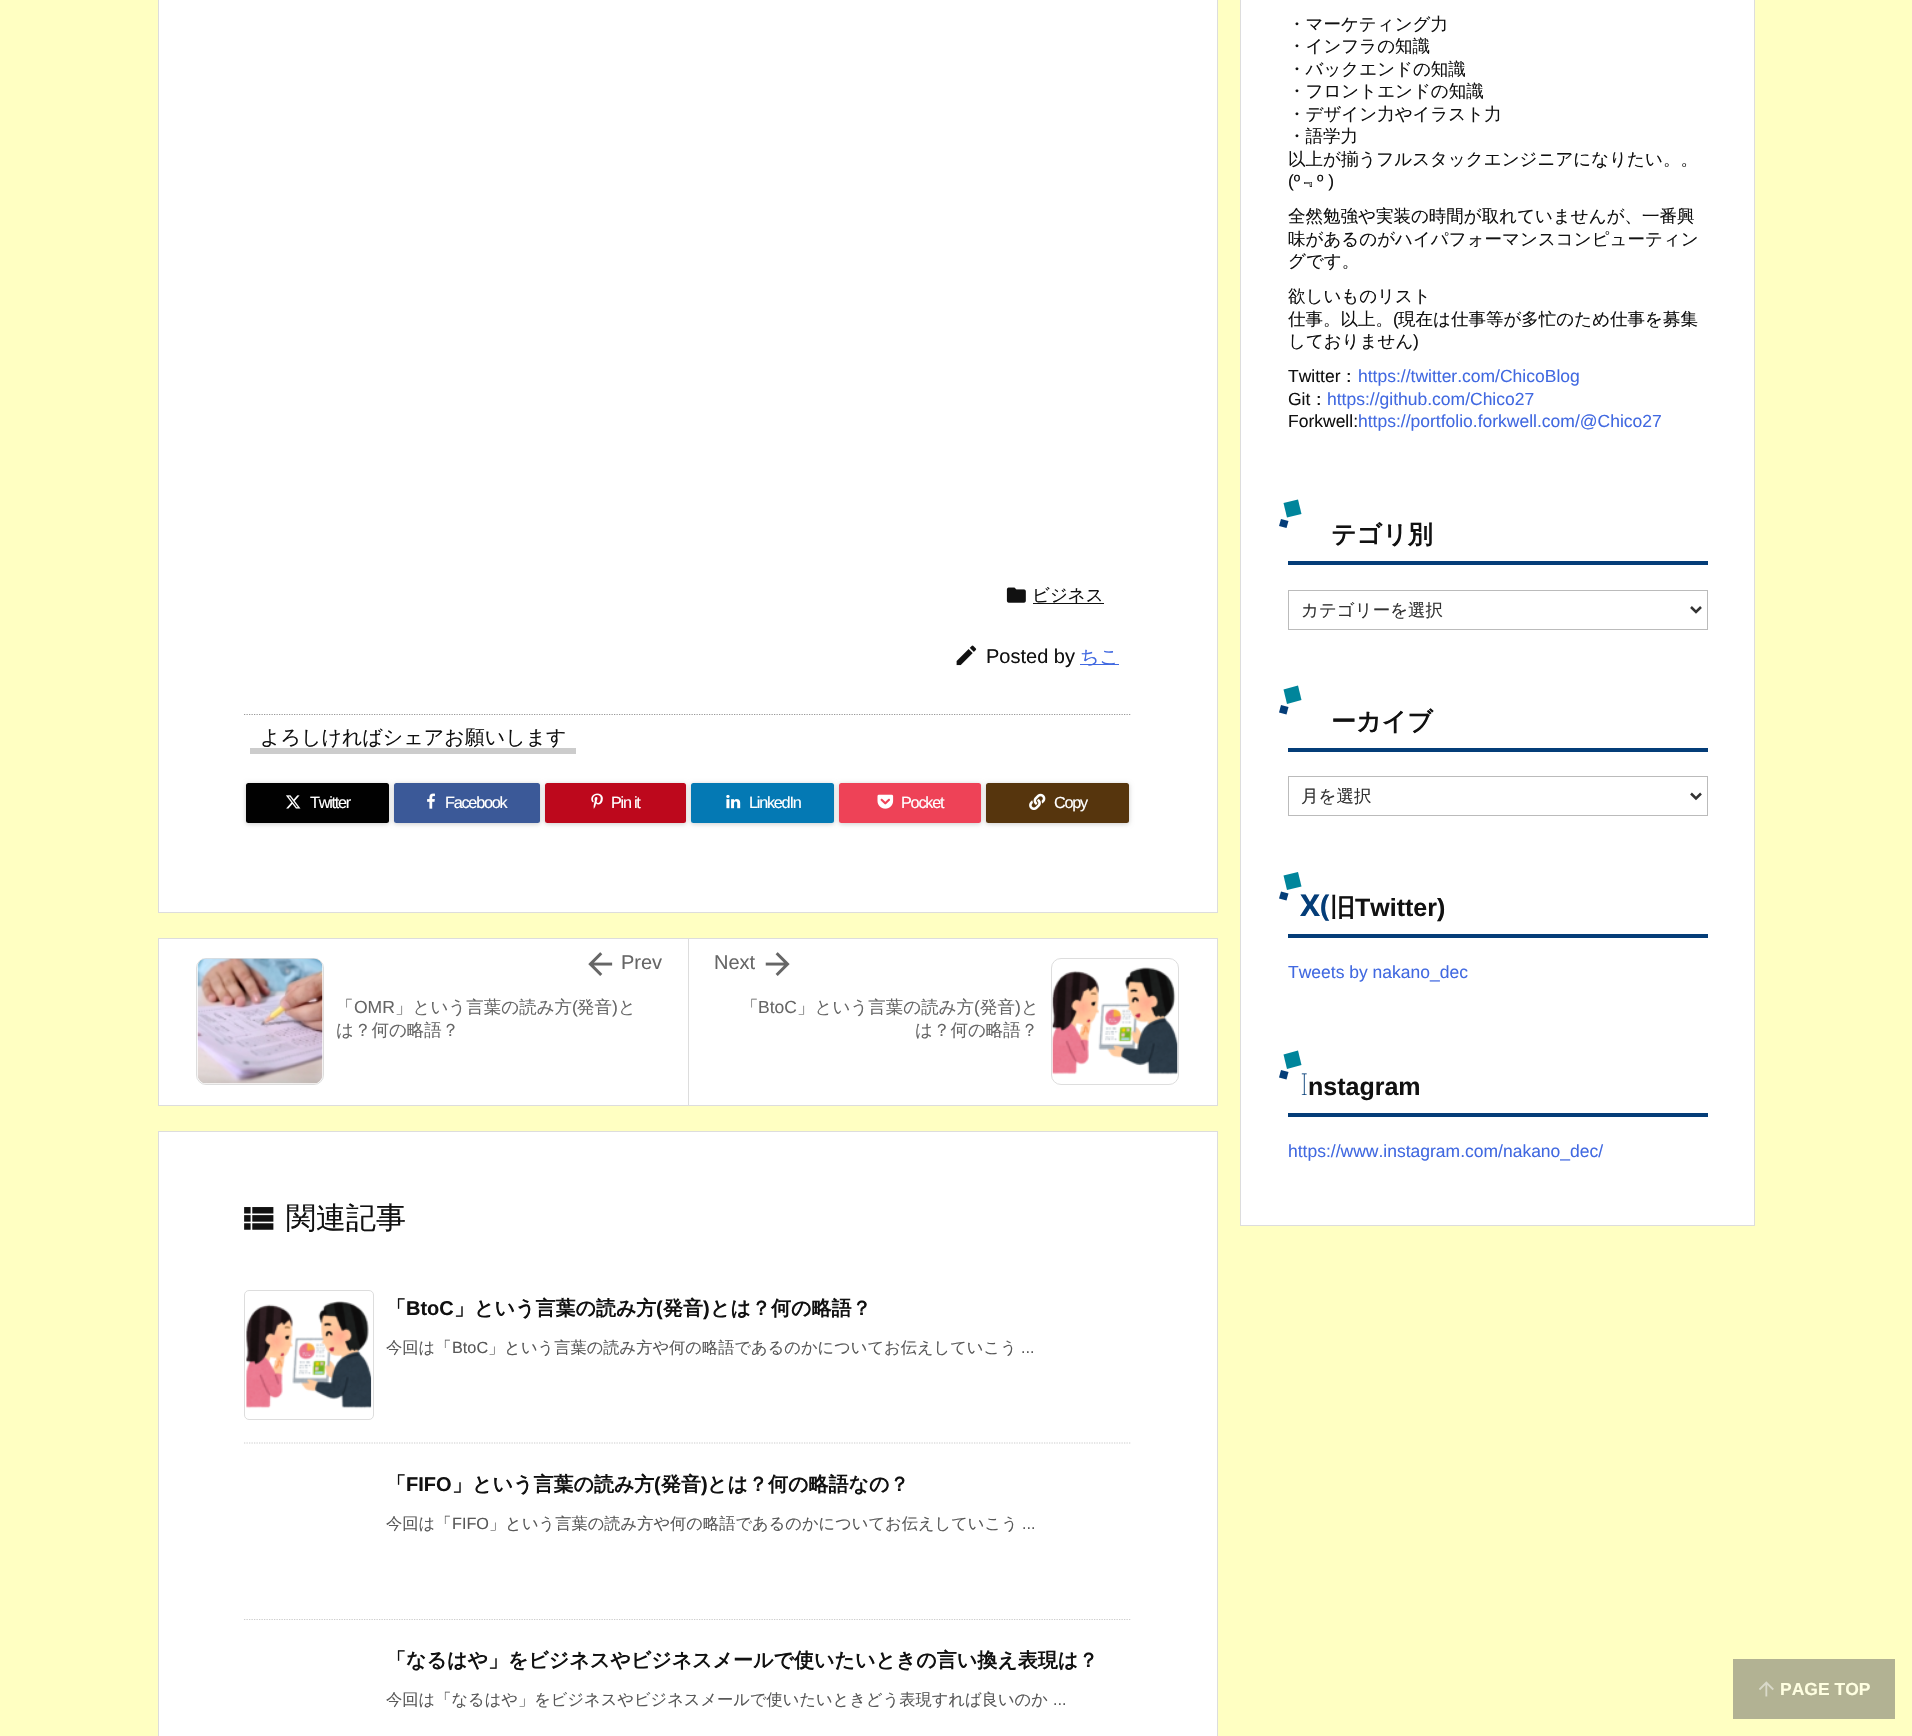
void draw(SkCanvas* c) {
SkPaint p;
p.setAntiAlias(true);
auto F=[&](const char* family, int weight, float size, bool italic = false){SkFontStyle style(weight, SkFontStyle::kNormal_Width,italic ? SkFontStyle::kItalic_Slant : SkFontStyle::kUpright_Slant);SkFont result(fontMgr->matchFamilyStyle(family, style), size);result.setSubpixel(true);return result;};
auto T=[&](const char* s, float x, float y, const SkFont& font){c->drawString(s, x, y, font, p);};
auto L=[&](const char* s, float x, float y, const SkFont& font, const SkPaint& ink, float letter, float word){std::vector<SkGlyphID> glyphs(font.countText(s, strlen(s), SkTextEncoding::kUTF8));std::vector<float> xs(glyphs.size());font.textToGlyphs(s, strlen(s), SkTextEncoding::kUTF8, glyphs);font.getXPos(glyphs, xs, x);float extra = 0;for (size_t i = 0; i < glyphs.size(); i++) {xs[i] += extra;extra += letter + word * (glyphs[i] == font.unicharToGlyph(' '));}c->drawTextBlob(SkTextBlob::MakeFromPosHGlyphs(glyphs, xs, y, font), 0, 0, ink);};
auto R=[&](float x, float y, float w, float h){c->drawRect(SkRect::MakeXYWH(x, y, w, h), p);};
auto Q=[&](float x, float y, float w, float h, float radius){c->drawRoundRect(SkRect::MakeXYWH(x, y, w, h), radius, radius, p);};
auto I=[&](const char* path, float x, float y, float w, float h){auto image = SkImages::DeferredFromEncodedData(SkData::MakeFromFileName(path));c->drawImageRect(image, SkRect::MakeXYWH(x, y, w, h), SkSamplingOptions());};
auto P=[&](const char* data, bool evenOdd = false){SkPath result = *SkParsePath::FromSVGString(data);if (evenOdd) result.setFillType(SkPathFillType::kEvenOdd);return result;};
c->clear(0xffffffc2);
p.setColor(0xffffffff);
c->drawRect(SkRect::MakeXYWH(158.5,-.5,1059,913),p);
p.setStroke(true);
p.setStrokeWidth(1);
p.setColor(0xffdddddd);
c->drawRect(SkRect::MakeXYWH(158.5,-.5,1059,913),p);
I("1.png",1006,587,20,16);
p.setStroke(false);
p.setColor(0xff111111);
R(1033,603,71,1);
auto f1 = F("WenQuanYi Zen Hei",500,17.5);
T("ビジネス",1032,601,f1);
I("2.png",956,645,21,21);
auto f2 = F("Liberation Sans",400,20);
T("Posted by",986,663,f2);
p.setColor(0xff4169e1);
R(1080,664,39,1);
auto f3 = F("WenQuanYi Zen Hei",500,19);
T("ちこ",1080,663,f3);
p.setStroke(true);
p.setStrokeWidth(1.2);
p.setColor(0xff999999);
p.setPathEffect(SkDashPathEffect::Make({{1.25f,1.25f}}, 0));
c->drawPath(P("M244 714.5h887"),p);
p.setPathEffect(nullptr);
p.setStroke(false);
p.setColor(0xffcccccc);
R(250,748,326,6);
auto f4 = F("WenQuanYi Zen Hei",500,20);
p.setColor(0xff111111);
T("よろしければシェアお願いします",260,744,f4);
p.setColor(0x33000000);
p.setMaskFilter(SkMaskFilter::MakeBlur(kNormal_SkBlurStyle, 2.5));
c->drawRoundRect(SkRect::MakeXYWH(246,784,143,40),2.5,2.5,p);
p.setMaskFilter(nullptr);
p.setColor(0xff010101);
Q(246,783,143,40,2.5);
I("3.png",286,795,15,14);
auto f5 = F("Liberation Sans",400,16.25);
p.setColor(0xffffffff);
L("Twitter",310,808,f5,p,-1.25,0);
p.setColor(0x33000000);
p.setMaskFilter(SkMaskFilter::MakeBlur(kNormal_SkBlurStyle, 2.5));
c->drawRoundRect(SkRect::MakeXYWH(394,784,146,40),2.5,2.5,p);
p.setMaskFilter(nullptr);
p.setColor(0xff3b5998);
Q(394,783,146,40,2.5);
I("4.png",427,793,8,16);
p.setColor(0xffffffff);
L("Facebook",445,808,f5,p,-1.25,0);
p.setColor(0x33000000);
p.setMaskFilter(SkMaskFilter::MakeBlur(kNormal_SkBlurStyle, 2.5));
c->drawRoundRect(SkRect::MakeXYWH(545,784,141,40),2.5,2.5,p);
p.setMaskFilter(nullptr);
p.setColor(0xffbd081c);
Q(545,783,141,40,2.5);
I("5.png",591,793,12,16);
p.setColor(0xffffffff);
L("Pin it",611,808,f5,p,-1.25,0);
p.setColor(0x33000000);
p.setMaskFilter(SkMaskFilter::MakeBlur(kNormal_SkBlurStyle, 2.5));
c->drawRoundRect(SkRect::MakeXYWH(691,784,143,40),2.5,2.5,p);
p.setMaskFilter(nullptr);
p.setColor(0xff0479b4);
Q(691,783,143,40,2.5);
I("6.png",726,794,15,15);
p.setColor(0xffffffff);
L("LinkedIn",749,808,f5,p,-1.25,0);
p.setColor(0x33000000);
p.setMaskFilter(SkMaskFilter::MakeBlur(kNormal_SkBlurStyle, 2.5));
c->drawRoundRect(SkRect::MakeXYWH(839,784,142,40),2.5,2.5,p);
p.setMaskFilter(nullptr);
p.setColor(0xffee4257);
Q(839,783,142,40,2.5);
I("7.png",877,794,17,15);
p.setColor(0xffffffff);
L("Pocket",901,808,f5,p,-1.25,0);
p.setColor(0x33000000);
p.setMaskFilter(SkMaskFilter::MakeBlur(kNormal_SkBlurStyle, 2.5));
c->drawRoundRect(SkRect::MakeXYWH(986,784,143,40),2.5,2.5,p);
p.setMaskFilter(nullptr);
p.setColor(0xff56350d);
Q(986,783,143,40,2.5);
I("8.png",1029,793,17,17);
p.setColor(0xffffffff);
L("Copy",1054,808,f5,p,-1.25,0);
c->drawRect(SkRect::MakeXYWH(158.5,938.5,1059,167),p);
p.setStroke(true);
p.setStrokeWidth(1);
p.setColor(0xffdddddd);
c->drawRect(SkRect::MakeXYWH(158.5,938.5,1059,167),p);
c->drawRoundRect(SkRect::MakeXYWH(196.5,958.5,127,126),9.5,9.5,p);
I("9.png",197,958,126,126);
p.setStroke(false);
p.setColor(0xff666666);
T("「",336,1013,f1);
auto f6 = F("Liberation Sans",400,17.5);
T("OMR",354,1013,f6);
T("」という言葉の読み方",395,1013,f1);
T("(",572,1013,f6);
T("発音",577,1013,f1);
T(")",612,1013,f6);
T("と",618,1013,f1);
T("は？何の略語？",336,1036,f1);
I("10.png",588,952,25,24);
T("Prev",621,969,f2);
p.setColor(0xffdddddd);
R(688,939,1,166);
p.setColor(0xff666666);
T("Next",714,969,f2);
I("11.png",765,952,25,24);
T("「",741,1013,f1);
T("BtoC",758,1013,f6);
T("」という言葉の読み方",797,1013,f1);
T("(",974,1013,f6);
T("発音",980,1013,f1);
T(")",1015,1013,f6);
T("と",1021,1013,f1);
T("は？何の略語？",915,1036,f1);
p.setStroke(true);
p.setColor(0xffdddddd);
c->drawRoundRect(SkRect::MakeXYWH(1051.5,958.5,127,126),9.5,9.5,p);
I("12.png",1052,967,126,108);
p.setStroke(false);
p.setColor(0xffffffff);
c->drawRect(SkRect::MakeXYWH(158.5,1131.5,1059,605),p);
p.setStroke(true);
p.setColor(0xffdddddd);
c->drawRect(SkRect::MakeXYWH(158.5,1131.5,1059,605),p);
I("13.png",244,1207,30,23);
auto f7 = F("WenQuanYi Zen Hei",500,30);
p.setStroke(false);
p.setColor(0xff111111);
T("関連記事",286,1228,f7);
p.setStroke(true);
p.setColor(0xffdddddd);
c->drawRoundRect(SkRect::MakeXYWH(244.5,1290.5,129,129),4.5,4.5,p);
I("14.png",246,1301,126,108);
auto f8 = F("WenQuanYi Zen Hei",700,20);
p.setStroke(false);
p.setColor(0xff111111);
T("「",386,1315,f8);
auto f9 = F("Liberation Sans",700,20);
T("BtoC",406,1315,f9);
T("」という言葉の読み方",454,1315,f8);
T("(",656,1315,f9);
T("発音",663,1315,f8);
T(")",703,1315,f9);
T("とは？何の略語？",710,1315,f8);
auto f10 = F("WenQuanYi Zen Hei",500,16.25);
p.setColor(0xff585858);
T("今回は「",386,1353,f10);
T("BtoC",452,1353,f5);
T("」という言葉の読み方や何の略語であるのかについてお伝えしていこう",488,1353,f10);
T("...",1021,1353,f5);
p.setStroke(true);
p.setStrokeWidth(1.2);
p.setColor(0xffcccccc);
p.setPathEffect(SkDashPathEffect::Make({{1.25f,1.25f}}, 0));
c->drawPath(P("M244 1443h887"),p);
p.setPathEffect(nullptr);
p.setStroke(false);
p.setColor(0xff111111);
T("「",386,1491,f8);
T("FIFO",406,1491,f9);
T("」という言葉の読み方",452,1491,f8);
T("(",654,1491,f9);
T("発音",661,1491,f8);
T(")",701,1491,f9);
T("とは？何の略語なの？",707,1491,f8);
p.setColor(0xff585858);
T("今回は「",386,1529,f10);
T("FIFO",452,1529,f5);
T("」という言葉の読み方や何の略語であるのかについてお伝えしていこう",489,1529,f10);
T("...",1022,1529,f5);
p.setStroke(true);
p.setColor(0xffcccccc);
p.setPathEffect(SkDashPathEffect::Make({{1.25f,1.25f}}, 0));
c->drawPath(P("M244 1619.5h887"),p);
p.setPathEffect(nullptr);
p.setStroke(false);
p.setColor(0xff111111);
T("「なるはや」をビジネスやビジネスメールで使いたいときの言い換え表現は？",386,1667,f8);
p.setColor(0xff585858);
T("今回は「なるはや」をビジネスやビジネスメールで使いたいときどう表現すれば良いのか",386,1705,f10);
T("...",1053,1705,f5);
p.setColor(0xffffffff);
c->drawRect(SkRect::MakeXYWH(1240.5,-.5,514,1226),p);
p.setStroke(true);
p.setStrokeWidth(1);
p.setColor(0xffdddddd);
c->drawRect(SkRect::MakeXYWH(1240.5,-.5,514,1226),p);
p.setStroke(false);
p.setColor(0xff111111);
T("・マーケティング力",1288,30,f1);
T("・インフラの知識",1288,52,f1);
T("・バックエンドの知識",1288,75,f1);
T("・フロントエンドの知識",1288,97,f1);
T("・デザイン力やイラスト力",1288,120,f1);
T("・語学力",1288,142,f1);
T("以上が揃うフルスタックエンジニアになりたい。。",1288,165,f1);
T("(º",1288,187,f6);
T("﹃",1300,187,f1);
T("º )",1317,187,f6);
T("全然勉強や実装の時間が取れていませんが、一番興",1288,222,f1);
T("味があるのがハイパフォーマンスコンピューティン",1288,245,f1);
T("グです。",1288,267,f1);
T("欲しいものリスト",1288,302,f1);
T("仕事。以上。",1288,325,f1);
T("(",1393,325,f6);
T("現在は仕事等が多忙のため仕事を募集",1398,325,f1);
T("しておりません",1288,347,f1);
T(")",1413,347,f6);
T("Twitter",1288,382,f6);
T("：",1340,382,f1);
p.setColor(0xff4169e1);
T("https://twitter.com/ChicoBlog",1358,382,f6);
p.setColor(0xff111111);
T("Git",1288,405,f6);
T("：",1310,405,f1);
p.setColor(0xff4169e1);
T("https://github.com/Chico27",1327,405,f6);
p.setColor(0xff111111);
T("Forkwell:",1288,427,f6);
p.setColor(0xff4169e1);
T("https://portfolio.forkwell.com/@Chico27",1358,427,f6);
p.setColor(0xff043d78);
R(1288,561,420,4);
p.setColor(0xff00859b);
c->drawPath(P("M1298 499.5l3.5 14.5l-14.5 3.5l-3.5-14.5z"),p);
p.setColor(0xff043d78);
c->drawPath(P("M1281 519l7.5 2l-2 7l-7.5-2z"),p);
auto f11 = F("Noto Sans",100,30);
T("カ",1300,543,f11);
auto f12 = F("WenQuanYi Zen Hei",700,25);
p.setColor(0xff111111);
T("テゴリ別",1331,543,f12);
p.setStroke(true);
p.setColor(0xffbbbbbb);
c->drawRect(SkRect::MakeXYWH(1288.5,590.5,419,39),p);
p.setStrokeWidth(2.5);
p.setColor(0xff333333);
c->drawPath(P("M1691 607l5 5l5-5"),p);
p.setStroke(false);
T("カテゴリーを選択",1301,616,f1);
p.setColor(0xff043d78);
R(1288,748,420,4);
p.setColor(0xff00859b);
c->drawPath(P("M1298 685.5l3.5 14.5l-14.5 4l-3.5-14.5z"),p);
p.setColor(0xff043d78);
c->drawPath(P("M1281 705l7.5 2l-2 7.5l-7.5-2z"),p);
T("ア",1300,730,f11);
p.setColor(0xff111111);
T("ーカイブ",1331,730,f12);
p.setStroke(true);
p.setStrokeWidth(1);
p.setColor(0xffbbbbbb);
c->drawRect(SkRect::MakeXYWH(1288.5,776.5,419,39),p);
p.setStrokeWidth(2.5);
p.setColor(0xff333333);
c->drawPath(P("M1691 793.5l5 5l5-5"),p);
p.setStroke(false);
T("月を選択",1301,802,f1);
p.setColor(0xff043d78);
R(1288,934,420,4);
p.setColor(0xff00859b);
c->drawPath(P("M1298 872l3.5 14.5l-14.5 3.5l-3.5-14.5z"),p);
p.setColor(0xff043d78);
c->drawPath(P("M1281 891.5l7.5 2l-2 7l-7.5-2z"),p);
auto f13 = F("Noto Sans",700,30);
T("X(",1300,916,f13);
p.setColor(0xff111111);
T("旧",1330,916,f12);
auto f14 = F("Liberation Sans",700,25);
T("Twitter)",1355,916,f14);
p.setColor(0xff4169e1);
T("Tweets by nakano_dec",1288,978,f6);
p.setColor(0xff043d78);
R(1288,1113,420,4);
p.setColor(0xff00859b);
c->drawPath(P("M1298 1050.5l3.5 14.5l-14.5 4l-3.5-14.5z"),p);
p.setColor(0xff043d78);
c->drawPath(P("M1281 1070l7.5 2l-2 7.5l-7.5-2z"),p);
T("I",1300,1095,f11);
p.setColor(0xff111111);
T("nstagram",1308,1095,f14);
p.setColor(0xff4169e1);
T("https://www.instagram.com/nakano_dec/",1288,1157,f6);
p.setColor(0xffb2b293);
R(1733,1659,162,60);
I("15.png",1759,1681,15,16);
auto f15 = F("Liberation Sans",700,17.5);
p.setColor(0xffffffe1);
T("PAGE TOP",1780,1695,f15);
}
